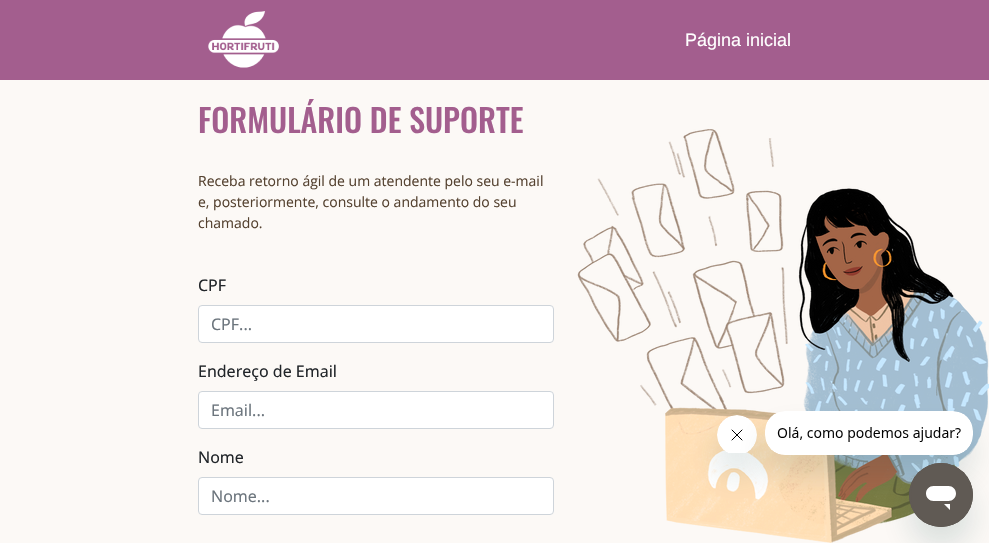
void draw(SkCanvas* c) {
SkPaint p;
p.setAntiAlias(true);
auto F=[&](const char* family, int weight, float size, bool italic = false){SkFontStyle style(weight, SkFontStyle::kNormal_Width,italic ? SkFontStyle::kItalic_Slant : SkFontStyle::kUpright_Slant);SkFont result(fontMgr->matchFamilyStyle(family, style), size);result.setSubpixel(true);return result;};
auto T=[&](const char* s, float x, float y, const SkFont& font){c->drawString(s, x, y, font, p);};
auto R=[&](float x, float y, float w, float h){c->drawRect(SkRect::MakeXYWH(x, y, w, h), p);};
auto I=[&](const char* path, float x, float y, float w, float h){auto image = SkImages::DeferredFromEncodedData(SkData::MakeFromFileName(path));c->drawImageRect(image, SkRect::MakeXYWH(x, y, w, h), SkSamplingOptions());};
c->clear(0xfffcf9f6);
p.setColor(0xffa35e8e);
R(0,0,989,80);
I("1.png",208,11,71,57);
auto f1 = F("Liberation Sans",400,18);
p.setColor(0xffffffff);
T("Página inicial",685,46,f1);
auto f2 = F("Oswald",500,32);
p.setColor(0xffa35e8e);
T("FORMULÁRIO DE SUPORTE",198,133,f2);
auto f3 = F("Open Sans",400,14);
p.setColor(0xff54412f);
T("Receba retorno ágil de um atendente pelo seu e-mail",198,186,f3);
T("e, posteriormente, consulte o andamento do seu",198,207,f3);
T("chamado.",198,228,f3);
auto f4 = F("Noto Sans",400,16);
p.setColor(0xff212529);
T("CPF",198,291,f4);
p.setColor(0xffffffff);
c->drawRoundRect(SkRect::MakeXYWH(198.5,305.5,355,37),3.5,3.5,p);
p.setStroke(true);
p.setStrokeWidth(1);
p.setColor(0xffced4da);
c->drawRoundRect(SkRect::MakeXYWH(198.5,305.5,355,37),3.5,3.5,p);
p.setStroke(false);
p.setColor(0xff6c757d);
T("CPF...",211,330,f4);
p.setColor(0xff212529);
T("Endereço de Email",198,377,f4);
p.setColor(0xffffffff);
c->drawRoundRect(SkRect::MakeXYWH(198.5,391.5,355,37),3.5,3.5,p);
p.setStroke(true);
p.setColor(0xffced4da);
c->drawRoundRect(SkRect::MakeXYWH(198.5,391.5,355,37),3.5,3.5,p);
p.setStroke(false);
p.setColor(0xff6c757d);
T("Email...",211,416,f4);
p.setColor(0xff212529);
T("Nome",198,463,f4);
p.setColor(0xffffffff);
c->drawRoundRect(SkRect::MakeXYWH(198.5,477.5,355,37),3.5,3.5,p);
p.setStroke(true);
p.setColor(0xffced4da);
c->drawRoundRect(SkRect::MakeXYWH(198.5,477.5,355,37),3.5,3.5,p);
p.setStroke(false);
p.setColor(0xff6c757d);
T("Nome...",211,502,f4);
I("2.png",577,129,412,414);
p.setColor(0x2617494d);
p.setMaskFilter(SkMaskFilter::MakeBlur(kNormal_SkBlurStyle, 15));
c->drawRoundRect(SkRect::MakeXYWH(717,435,40,40),20,20,p);
p.setMaskFilter(nullptr);
I("4.png",717,415,40,38);
p.setMaskFilter(SkMaskFilter::MakeBlur(kNormal_SkBlurStyle, 15));
c->drawRoundRect(SkRect::MakeXYWH(765,431,208,44),20,20,p);
p.setMaskFilter(nullptr);
I("3.png",765,411,208,44);
p.setMaskFilter(SkMaskFilter::MakeBlur(kNormal_SkBlurStyle, 15));
c->drawRoundRect(SkRect::MakeXYWH(909,483,64,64),32,32,p);
p.setMaskFilter(nullptr);
I("5.png",909,463,64,64);
}
